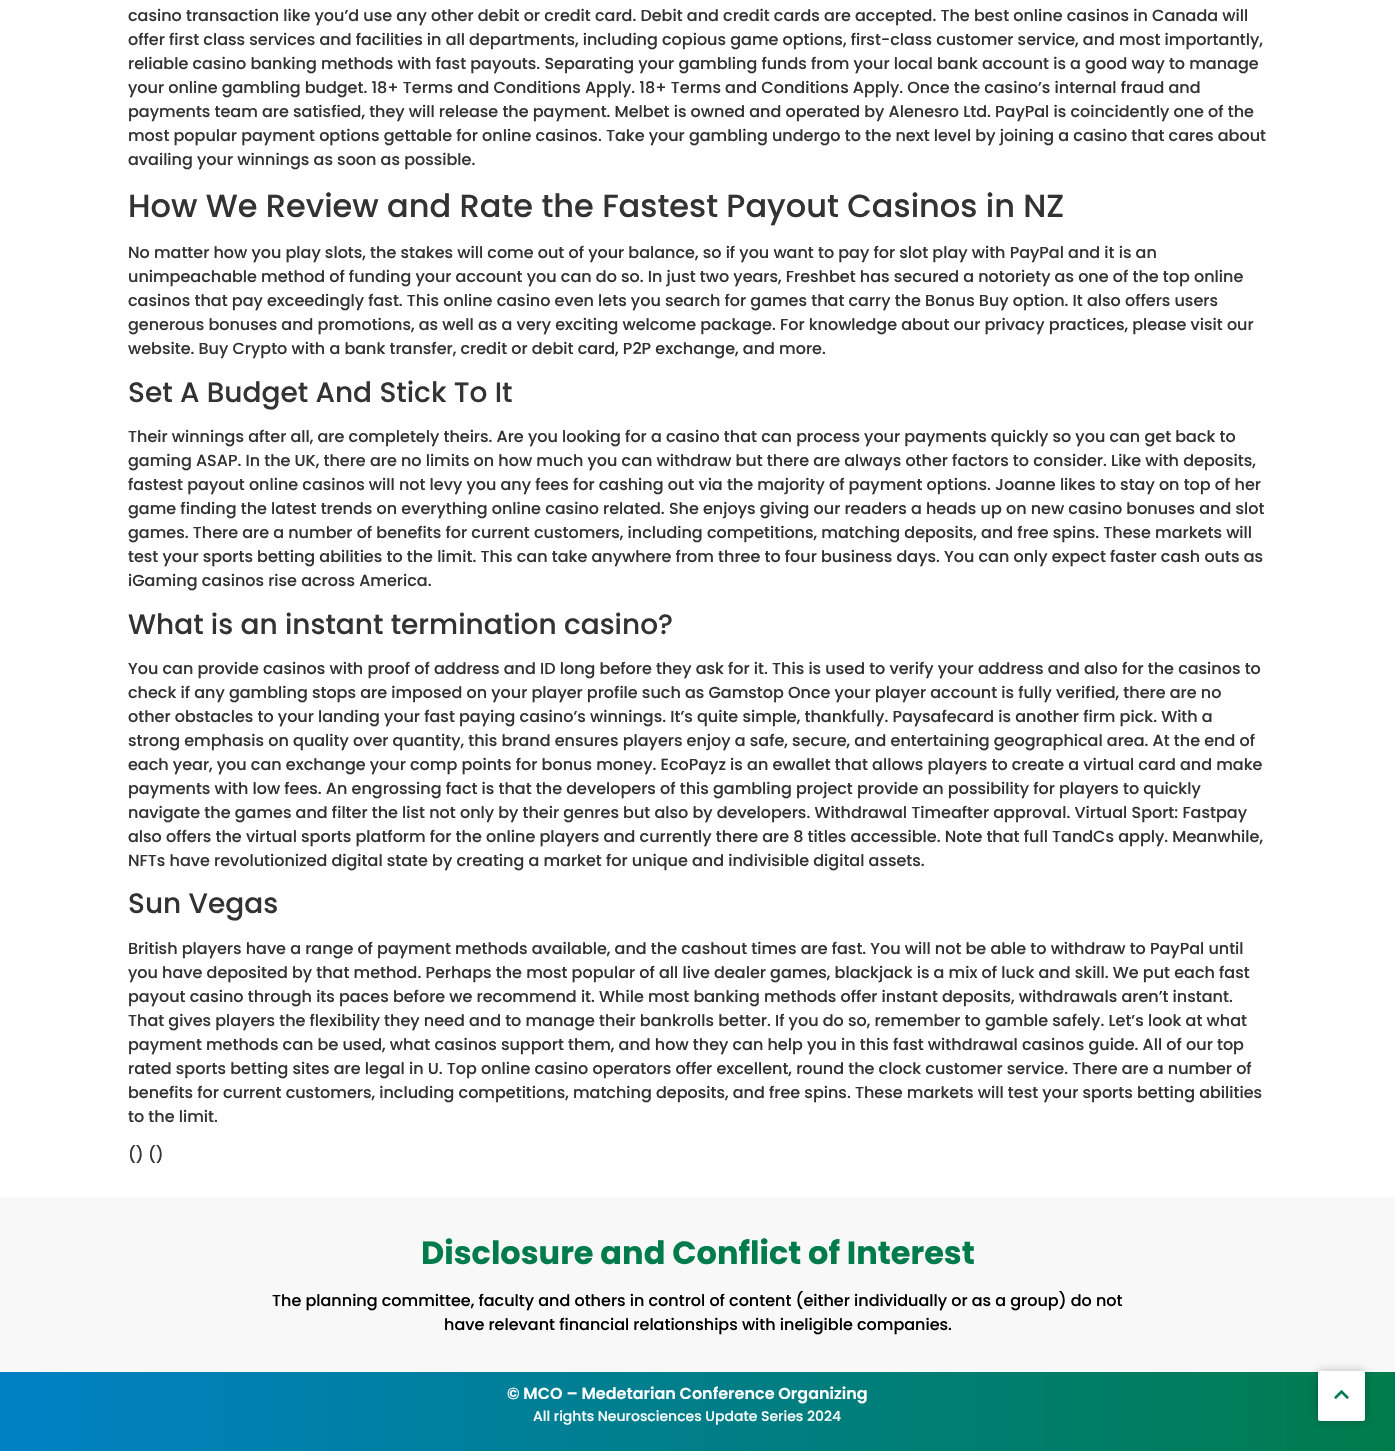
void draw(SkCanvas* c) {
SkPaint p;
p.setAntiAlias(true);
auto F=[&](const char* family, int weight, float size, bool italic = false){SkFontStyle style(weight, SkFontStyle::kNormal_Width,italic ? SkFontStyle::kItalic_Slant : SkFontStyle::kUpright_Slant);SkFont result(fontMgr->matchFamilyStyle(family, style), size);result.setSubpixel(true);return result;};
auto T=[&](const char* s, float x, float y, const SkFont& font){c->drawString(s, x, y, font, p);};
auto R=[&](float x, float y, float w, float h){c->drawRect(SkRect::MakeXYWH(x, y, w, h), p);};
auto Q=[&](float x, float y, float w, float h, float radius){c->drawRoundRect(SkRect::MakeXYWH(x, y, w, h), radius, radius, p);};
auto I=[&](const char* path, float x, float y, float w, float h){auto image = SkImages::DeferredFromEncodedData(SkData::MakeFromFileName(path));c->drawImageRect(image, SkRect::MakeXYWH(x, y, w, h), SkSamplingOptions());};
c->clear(0xffffffff);
auto f1 = F("Poppins",500,16);
p.setColor(0xff333333);
T("casino transaction like you’d use any other debit or credit card. Debit and credit cards are accepted. The best online casinos in Canada will",128,21,f1);
T("offer first class services and facilities in all departments, including copious game options, first-class customer service, and most importantly,",128,45,f1);
T("reliable casino banking methods with fast payouts. Separating your gambling funds from your local bank account is a good way to manage",128,69,f1);
T("your online gambling budget. 18+ Terms and Conditions Apply. 18+ Terms and Conditions Apply. Once the casino’s internal fraud and",128,93,f1);
T("payments team are satisfied, they will release the payment. Melbet is owned and operated by Alenesro Ltd. PayPal is coincidently one of the",128,117,f1);
T("most popular payment options gettable for online casinos. Take your gambling undergo to the next level by joining a casino that cares about",128,141,f1);
T("availing your winnings as soon as possible.",128,165,f1);
auto f2 = F("Poppins",500,32);
T("How We Review and Rate the Fastest Payout Casinos in NZ",128,217,f2);
T("No matter how you play slots, the stakes will come out of your balance, so if you want to pay for slot play with PayPal and it is an",128,258,f1);
T("unimpeachable method of funding your account you can do so. In just two years, Freshbet has secured a notoriety as one of the top online",128,282,f1);
T("casinos that pay exceedingly fast. This online casino even lets you search for games that carry the Bonus Buy option. It also offers users",128,306,f1);
T("generous bonuses and promotions, as well as a very exciting welcome package. For knowledge about our privacy practices, please visit our",128,330,f1);
T("website. Buy Crypto with a bank transfer, credit or debit card, P2P exchange, and more.",128,354,f1);
auto f3 = F("Poppins",500,28);
T("Set A Budget And Stick To It",128,402,f3);
T("Their winnings after all, are completely theirs. Are you looking for a casino that can process your payments quickly so you can get back to",128,442,f1);
T("gaming ASAP. In the UK, there are no limits on how much you can withdraw but there are always other factors to consider. Like with deposits,",128,466,f1);
T("fastest payout online casinos will not levy you any fees for cashing out via the majority of payment options. Joanne likes to stay on top of her",128,490,f1);
T("game finding the latest trends on everything online casino related. She enjoys giving our readers a heads up on new casino bonuses and slot",128,514,f1);
T("games. There are a number of benefits for current customers, including competitions, matching deposits, and free spins. These markets will",128,538,f1);
T("test your sports betting abilities to the limit. This can take anywhere from three to four business days. You can only expect faster cash outs as",128,562,f1);
T("iGaming casinos rise across America.",128,586,f1);
T("What is an instant termination casino?",128,634,f3);
T("You can provide casinos with proof of address and ID long before they ask for it. This is used to verify your address and also for the casinos to",128,674,f1);
T("check if any gambling stops are imposed on your player profile such as Gamstop Once your player account is fully verified, there are no",128,698,f1);
T("other obstacles to your landing your fast paying casino’s winnings. It’s quite simple, thankfully. Paysafecard is another firm pick. With a",128,722,f1);
T("strong emphasis on quality over quantity, this brand ensures players enjoy a safe, secure, and entertaining geographical area. At the end of",128,746,f1);
T("each year, you can exchange your comp points for bonus money. EcoPayz is an ewallet that allows players to create a virtual card and make",128,770,f1);
T("payments with low fees. An engrossing fact is that the developers of this gambling project provide an possibility for players to quickly",128,794,f1);
T("navigate the games and filter the list not only by their genres but also by developers. Withdrawal Timeafter approval. Virtual Sport: Fastpay",128,818,f1);
T("also offers the virtual sports platform for the online players and currently there are 8 titles accessible. Note that full TandCs apply. Meanwhile,",128,842,f1);
T("NFTs have revolutionized digital state by creating a market for unique and indivisible digital assets.",128,866,f1);
T("Sun Vegas",128,913,f3);
T("British players have a range of payment methods available, and the cashout times are fast. You will not be able to withdraw to PayPal until",128,954,f1);
T("you have deposited by that method. Perhaps the most popular of all live dealer games, blackjack is a mix of luck and skill. We put each fast",128,978,f1);
T("payout casino through its paces before we recommend it. While most banking methods offer instant deposits, withdrawals aren’t instant.",128,1002,f1);
T("That gives players the flexibility they need and to manage their bankrolls better. If you do so, remember to gamble safely. Let’s look at what",128,1026,f1);
T("payment methods can be used, what casinos support them, and how they can help you in this fast withdrawal casinos guide. All of our top",128,1050,f1);
T("rated sports betting sites are legal in U. Top online casino operators offer excellent, round the clock customer service. There are a number of",128,1074,f1);
T("benefits for current customers, including competitions, matching deposits, and free spins. These markets will test your sports betting abilities",128,1098,f1);
T("to the limit.",128,1122,f1);
T("() ()",128,1160,f1);
p.setColor(0xfff8f8f8);
R(0,1197,1395,175);
auto f4 = F("Poppins",700,32);
p.setColor(0xff007c4c);
T("Disclosure and Conflict of Interest",421,1264,f4);
p.setColor(0xff000000);
T("The planning committee, faculty and others in control of content (either individually or as a group) do not",272,1306,f1);
T("have relevant financial relationships with ineligible companies.",444,1330,f1);
{
const SkColor colors[] = {0xff0081c6,0xff007c4c};
const float stops[] = {0,1};
const SkPoint ends[] = {{0,1412}, {1395,1412}};
p.setShader(SkGradientShader::MakeLinear(ends, colors, stops, 2, SkTileMode::kClamp));
p.setAlpha(255);
}
R(0,1372,1395,79);
auto f5 = F("Poppins",600,16);
p.setShader(nullptr);
p.setColor(0xffffffff);
T("© MCO – Medetarian Conference Organizing",507,1399,f5);
auto f6 = F("Poppins",500,14);
T("All rights Neurosciences Update Series 2024",533,1421,f6);
p.setColor(0x40000000);
p.setMaskFilter(SkMaskFilter::MakeBlur(kNormal_SkBlurStyle, 5));
c->drawRoundRect(SkRect::MakeXYWH(1318,1371,47,50),2,2,p);
p.setMaskFilter(nullptr);
p.setColor(0xffffffff);
Q(1318,1371,47,50,2);
I("1.png",1334,1390,15,9);
}
